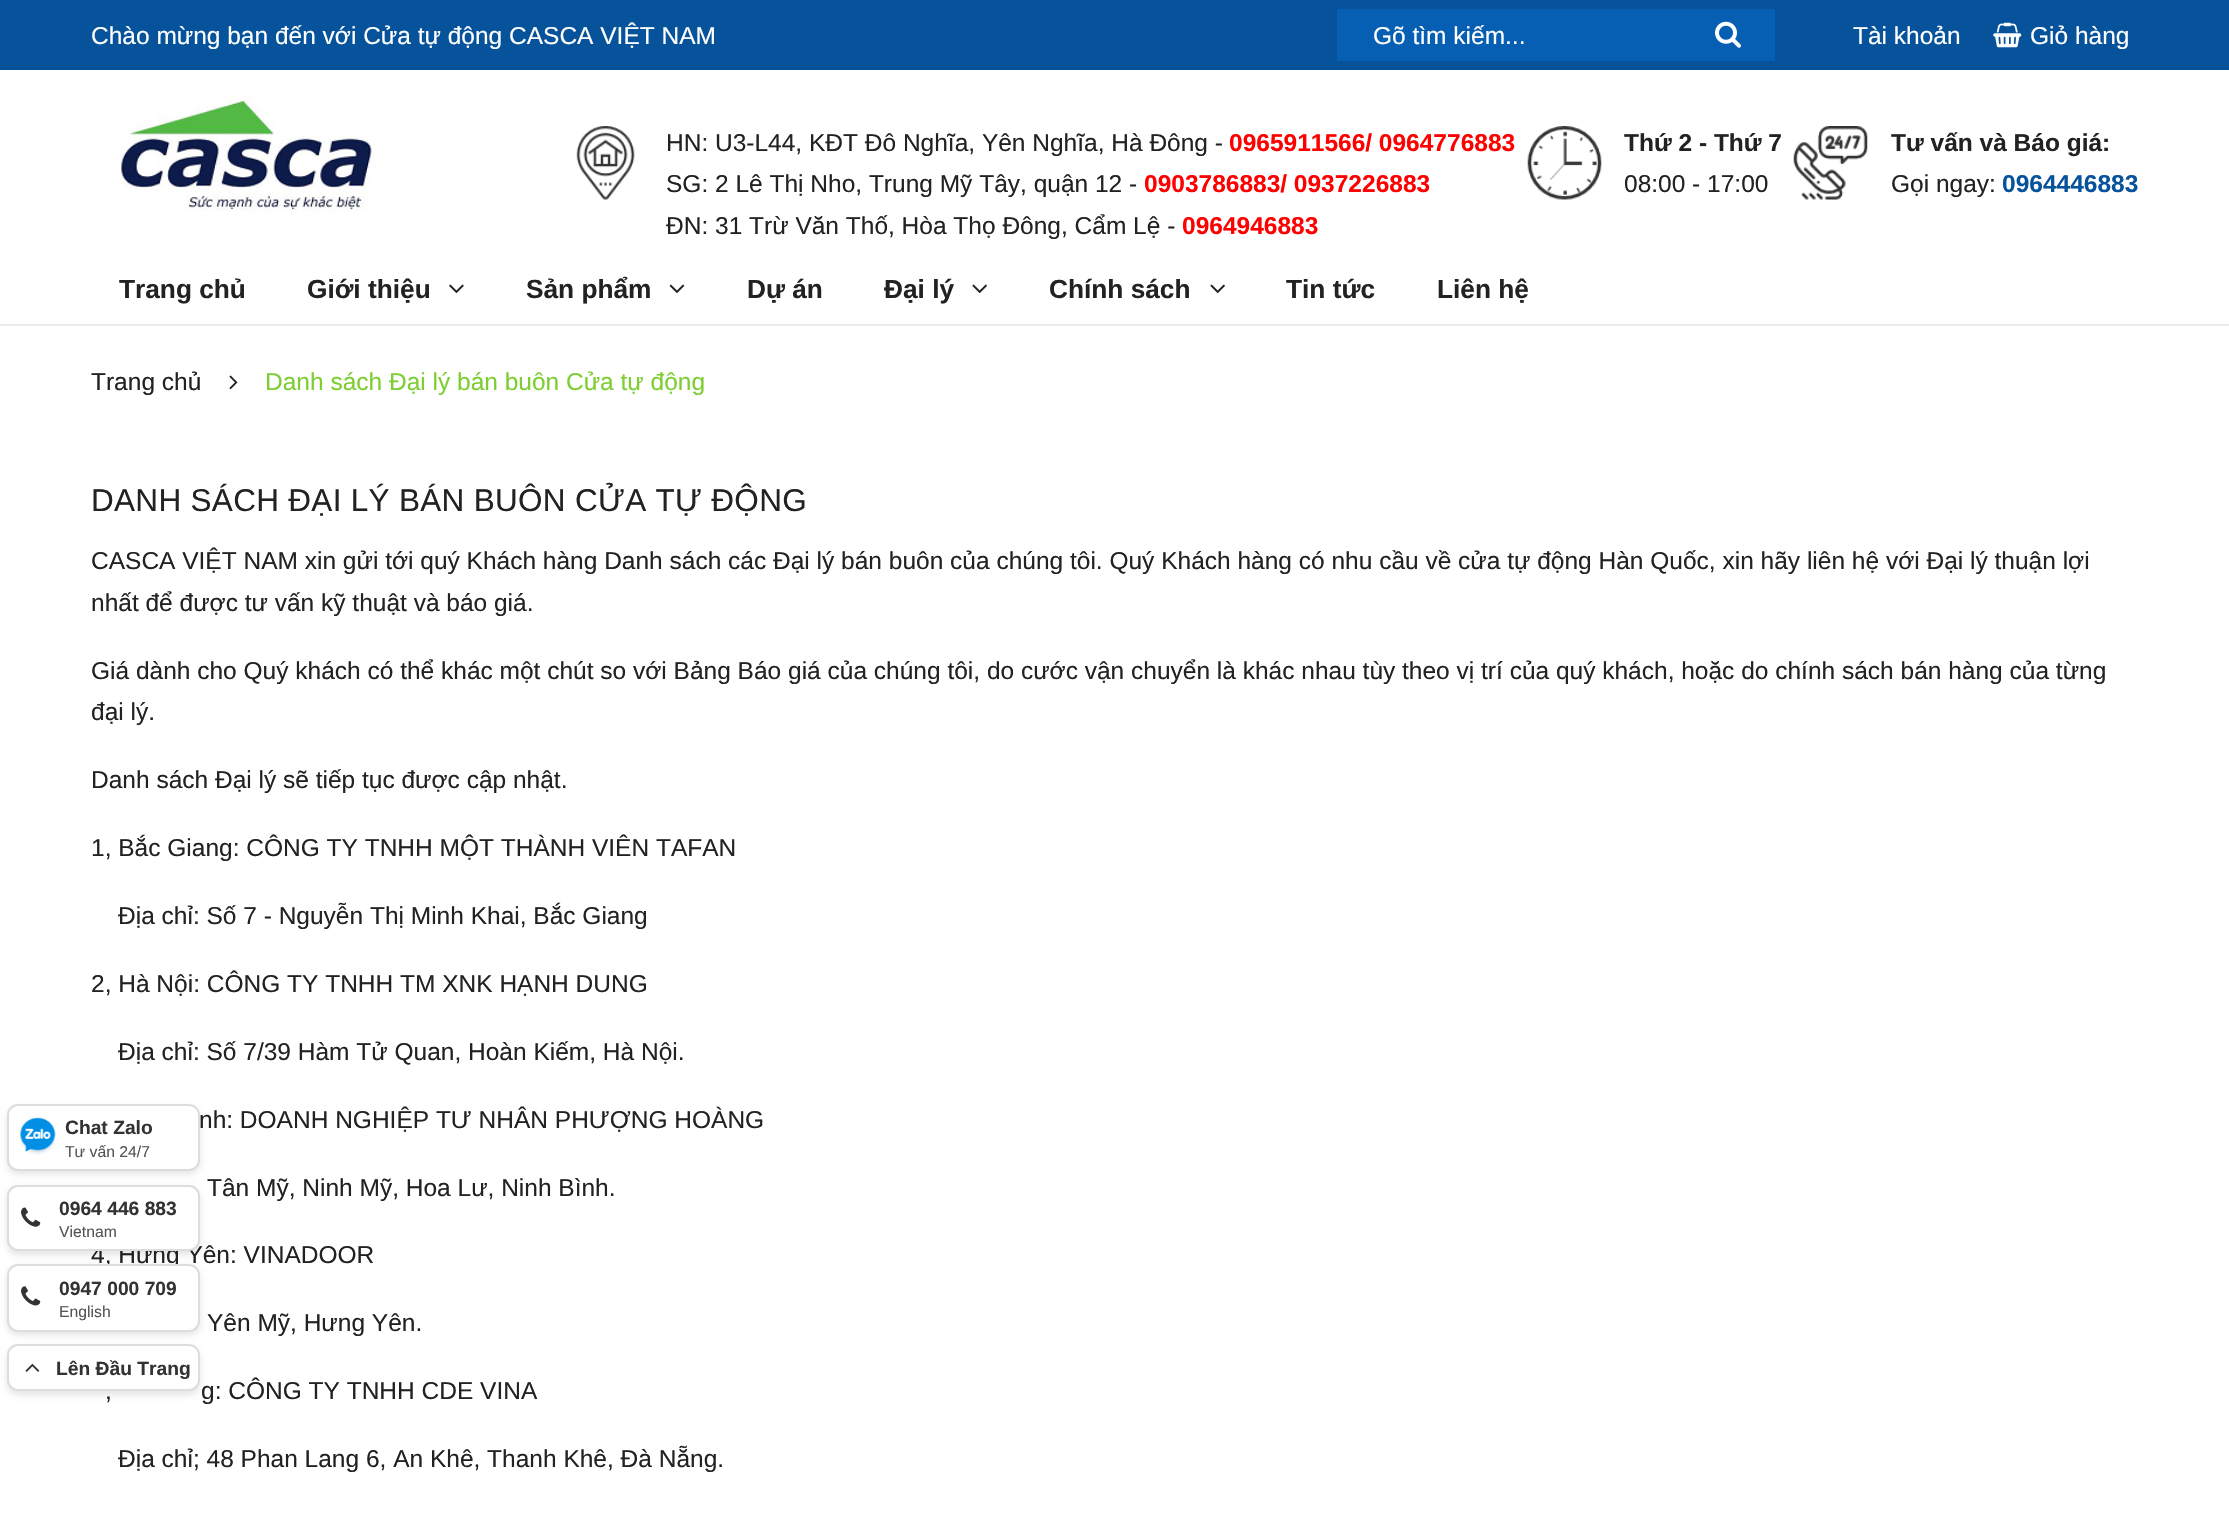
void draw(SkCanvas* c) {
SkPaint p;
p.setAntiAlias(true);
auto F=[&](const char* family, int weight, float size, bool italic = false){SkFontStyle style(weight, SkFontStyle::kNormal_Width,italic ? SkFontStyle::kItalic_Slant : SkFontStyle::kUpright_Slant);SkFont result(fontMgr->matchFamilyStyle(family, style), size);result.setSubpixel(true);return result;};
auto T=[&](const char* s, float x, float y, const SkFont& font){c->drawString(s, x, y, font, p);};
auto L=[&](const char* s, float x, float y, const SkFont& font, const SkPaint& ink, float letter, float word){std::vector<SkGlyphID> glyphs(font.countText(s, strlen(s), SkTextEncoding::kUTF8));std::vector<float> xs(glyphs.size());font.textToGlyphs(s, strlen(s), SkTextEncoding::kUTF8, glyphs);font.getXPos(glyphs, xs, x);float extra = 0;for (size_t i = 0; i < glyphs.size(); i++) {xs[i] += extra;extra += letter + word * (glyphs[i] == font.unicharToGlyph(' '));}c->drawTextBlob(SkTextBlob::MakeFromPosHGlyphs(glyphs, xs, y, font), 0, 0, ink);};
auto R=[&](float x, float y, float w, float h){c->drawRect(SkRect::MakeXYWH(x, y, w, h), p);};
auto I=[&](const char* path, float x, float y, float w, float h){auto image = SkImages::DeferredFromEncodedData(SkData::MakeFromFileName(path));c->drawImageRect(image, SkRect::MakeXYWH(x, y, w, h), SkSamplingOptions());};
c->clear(0xffffffff);
p.setColor(0xff06529b);
R(0,0,2229,70);
auto f1 = F("Liberation Sans",400,24.5);
p.setColor(0xffffffff);
T("Chào mừng bạn đến với Cửa tự động CASCA VIỆT NAM",91,44,f1);
p.setColor(0xff075fb4);
R(1337,9,438,52);
p.setColor(0xffffffff);
T("Gõ tìm kiếm...",1373,44,f1);
I("1.png",1715,21,26,27);
T("Tài khoản",1853,44,f1);
I("2.png",1993,22,29,26);
T("Giỏ hàng",2030,44,f1);
p.setColor(0xffebebeb);
R(0,324,2229,2);
I("3.png",119,96,259,115);
I("4.png",576,126,59,74);
p.setColor(0xff222222);
T("HN: U3-L44, KĐT Đô Nghĩa, Yên Nghĩa, Hà Đông -",666,151,f1);
auto f2 = F("Liberation Sans",700,24.5);
p.setColor(0xffff0000);
T("0965911566/ 0964776883",1229,151,f2);
p.setColor(0xff222222);
T("SG: 2 Lê Thị Nho, Trung Mỹ Tây, quận 12 -",666,192,f1);
p.setColor(0xffff0000);
T("0903786883/ 0937226883",1144,192,f2);
p.setColor(0xff222222);
T("ĐN: 31 Trừ Văn Thố, Hòa Thọ Đông, Cẩm Lệ -",666,234,f1);
p.setColor(0xffff0000);
T("0964946883",1182,234,f2);
I("5.png",1527,126,75,74);
p.setColor(0xff222222);
T("Thứ 2 - Thứ 7",1624,151,f2);
T("08:00 - 17:00",1624,192,f1);
I("6.png",1793,126,75,74);
T("Tư vấn và Báo giá:",1891,151,f2);
T("Gọi ngay:",1891,192,f1);
p.setColor(0xff06529b);
T("0964446883",2002,192,f2);
auto f3 = F("Liberation Sans",700,26.25);
p.setColor(0xff222222);
T("Trang chủ",119,298,f3);
T("Giới thiệu",307,298,f3);
I("7.png",449,284,15,9);
T("Sản phẩm",526,298,f3);
I("8.png",669,284,16,9);
T("Dự án",747,298,f3);
T("Đại lý",884,298,f3);
I("9.png",972,284,15,9);
T("Chính sách",1049,298,f3);
I("9.png",1210,284,15,9);
T("Tin tức",1286,298,f3);
T("Liên hệ",1437,298,f3);
T("Trang chủ",91,390,f1);
I("10.png",229,375,9,15);
p.setColor(0xff7dce32);
T("Danh sách Đại lý bán buôn Cửa tự động",265,390,f1);
auto f4 = F("Liberation Sans",400,31.5);
p.setColor(0xff222222);
L("DANH SÁCH ĐẠI LÝ BÁN BUÔN CỬA TỰ ĐỘNG",91,511,f4,p,.3,0);
T("CASCA VIỆT NAM xin gửi tới quý Khách hàng Danh sách các Đại lý bán buôn của chúng tôi. Quý Khách hàng có nhu cầu về cửa tự động Hàn Quốc, xin hãy liên hệ với Đại lý thuận lợi",91,569,f1);
T("nhất để được tư vấn kỹ thuật và báo giá.",91,611,f1);
T("Giá dành cho Quý khách có thể khác một chút so với Bảng Báo giá của chúng tôi, do cước vận chuyển là khác nhau tùy theo vị trí của quý khách, hoặc do chính sách bán hàng của từng",91,679,f1);
T("đại lý.",91,720,f1);
T("Danh sách Đại lý sẽ tiếp tục được cập nhật.",91,788,f1);
T("1, Bắc Giang: CÔNG TY TNHH MỘT THÀNH VIÊN TAFAN",91,856,f1);
T("Địa chỉ: Số 7 - Nguyễn Thị Minh Khai, Bắc Giang",118,924,f1);
T("2, Hà Nội: CÔNG TY TNHH TM XNK HẠNH DUNG",91,992,f1);
T("Địa chỉ: Số 7/39 Hàm Tử Quan, Hoàn Kiếm, Hà Nội.",118,1060,f1);
T("nh: DOANH NGHIỆP TƯ NHÂN PHƯỢNG HOÀNG",199,1128,f1);
T("Tân Mỹ, Ninh Mỹ, Hoa Lư, Ninh Bình.",207,1196,f1);
T("4, Hưng Yên: VINADOOR",91,1263,f1);
T("Yên Mỹ, Hưng Yên.",207,1331,f1);
T(",",105,1399,f1);
T("g: CÔNG TY TNHH CDE VINA",201,1399,f1);
T("Địa chỉ; 48 Phan Lang 6, An Khê, Thanh Khê, Đà Nẵng.",118,1467,f1);
p.setColor(0x1a000000);
p.setMaskFilter(SkMaskFilter::MakeBlur(kNormal_SkBlurStyle, 3));
c->drawRoundRect(SkRect::MakeXYWH(7,1108,193,66),11,11,p);
p.setMaskFilter(nullptr);
p.setColor(0xffffffff);
c->drawRoundRect(SkRect::MakeXYWH(8,1105,191,65),10,10,p);
p.setStroke(true);
p.setStrokeWidth(2);
p.setColor(0xffdddddd);
c->drawRoundRect(SkRect::MakeXYWH(8,1105,191,65),10,10,p);
I("11.png",19,1117,37,38);
auto f5 = F("Liberation Sans",700,19.25);
p.setStroke(false);
p.setColor(0xff333333);
T("Chat Zalo",65,1134,f5);
auto f6 = F("Liberation Sans",400,15.75);
p.setColor(0xff555555);
T("Tư vấn 24/7",65,1157,f6);
p.setColor(0x1a000000);
p.setMaskFilter(SkMaskFilter::MakeBlur(kNormal_SkBlurStyle, 3));
c->drawRoundRect(SkRect::MakeXYWH(7,1188,193,67),11,11,p);
p.setMaskFilter(nullptr);
p.setColor(0xffffffff);
c->drawRoundRect(SkRect::MakeXYWH(8,1186,191,64),10,10,p);
p.setStroke(true);
p.setColor(0xffdddddd);
c->drawRoundRect(SkRect::MakeXYWH(8,1186,191,64),10,10,p);
I("12.png",21,1207,20,20);
p.setStroke(false);
p.setColor(0xff333333);
T("0964 446 883",59,1215,f5);
p.setColor(0xff555555);
T("Vietnam",59,1237,f6);
p.setColor(0x1a000000);
p.setMaskFilter(SkMaskFilter::MakeBlur(kNormal_SkBlurStyle, 3));
c->drawRoundRect(SkRect::MakeXYWH(7,1267,193,68),11,11,p);
p.setMaskFilter(nullptr);
p.setColor(0xffffffff);
c->drawRoundRect(SkRect::MakeXYWH(8,1265,191,66),10,10,p);
p.setStroke(true);
p.setColor(0xffdddddd);
c->drawRoundRect(SkRect::MakeXYWH(8,1265,191,66),10,10,p);
I("13.png",21,1286,20,20);
p.setStroke(false);
p.setColor(0xff333333);
T("0947 000 709",59,1295,f5);
p.setColor(0xff555555);
T("English",59,1317,f6);
p.setColor(0x1a000000);
p.setMaskFilter(SkMaskFilter::MakeBlur(kNormal_SkBlurStyle, 3));
c->drawRoundRect(SkRect::MakeXYWH(7,1348,193,47),11,11,p);
p.setMaskFilter(nullptr);
p.setColor(0xffffffff);
c->drawRoundRect(SkRect::MakeXYWH(8,1345,191,45),10,10,p);
p.setStroke(true);
p.setColor(0xffdddddd);
c->drawRoundRect(SkRect::MakeXYWH(8,1345,191,45),10,10,p);
I("14.png",25,1363,15,9);
p.setStroke(false);
p.setColor(0xff333333);
T("Lên Đầu Trang",56,1375,f5);
}
